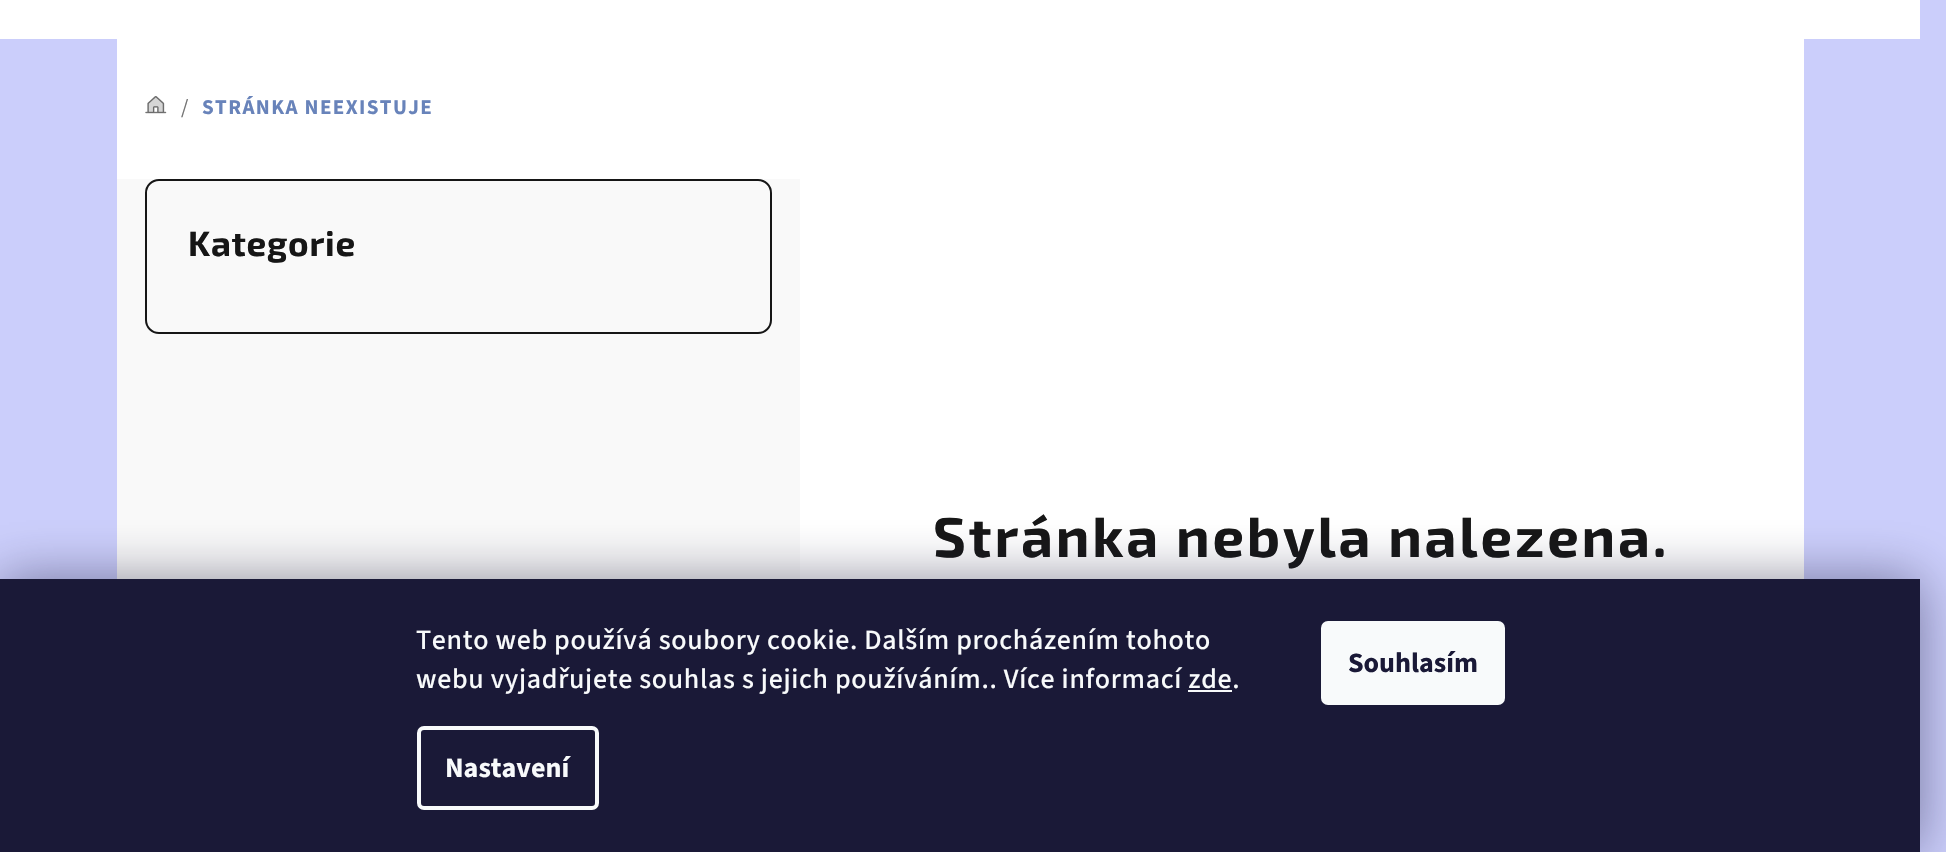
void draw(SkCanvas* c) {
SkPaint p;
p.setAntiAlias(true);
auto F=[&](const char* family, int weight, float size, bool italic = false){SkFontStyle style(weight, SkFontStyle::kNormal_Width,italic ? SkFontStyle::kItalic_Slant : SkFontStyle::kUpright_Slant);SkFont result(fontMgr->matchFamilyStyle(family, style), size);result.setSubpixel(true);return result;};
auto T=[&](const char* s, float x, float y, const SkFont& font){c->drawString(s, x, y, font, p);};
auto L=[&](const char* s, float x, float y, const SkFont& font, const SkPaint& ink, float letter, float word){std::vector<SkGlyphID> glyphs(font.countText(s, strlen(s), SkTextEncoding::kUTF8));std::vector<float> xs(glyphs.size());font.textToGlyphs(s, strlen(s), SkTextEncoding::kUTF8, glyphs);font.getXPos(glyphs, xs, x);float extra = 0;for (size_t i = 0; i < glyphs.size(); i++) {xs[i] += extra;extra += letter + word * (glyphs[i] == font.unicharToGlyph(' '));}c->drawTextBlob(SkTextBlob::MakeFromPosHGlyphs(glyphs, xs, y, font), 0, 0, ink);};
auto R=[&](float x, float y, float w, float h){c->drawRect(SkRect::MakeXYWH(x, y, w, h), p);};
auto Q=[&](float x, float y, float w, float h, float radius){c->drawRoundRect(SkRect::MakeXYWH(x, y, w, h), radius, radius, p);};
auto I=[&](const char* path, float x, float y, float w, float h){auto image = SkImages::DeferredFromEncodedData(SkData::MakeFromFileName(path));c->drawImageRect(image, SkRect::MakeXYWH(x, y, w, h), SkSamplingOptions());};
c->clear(0xffcbcefb);
p.setColor(0xffffffff);
R(0,0,1920,39);
R(117,39,1687,540);
I("1.png",145,96,22,18);
I("2.png",148,96,16,17);
auto f1 = F("Source Sans 3",400,21);
p.setColor(0xff747474);
L("/",181,114,f1,p,1.4,0);
auto f2 = F("Source Sans 3",700,21);
p.setColor(0xff6883ba);
L("STRÁNKA NEEXISTUJE",202,114,f2,p,1.4,0);
p.setColor(0xfff9f9f9);
R(117,179,683,400);
p.setStroke(true);
p.setStrokeWidth(2);
p.setColor(0xff161616);
c->drawRoundRect(SkRect::MakeXYWH(146,180,625,153),13,13,p);
auto f3 = F("Exo 2",700,35);
p.setStroke(false);
L("Kategorie",188,256,f3,p,.7,0);
auto f4 = F("Exo 2",700,56);
L("Stránka nebyla nalezena.",933,557,f4,p,2.8,0);
p.setColor(0x801b1939);
p.setMaskFilter(SkMaskFilter::MakeBlur(kNormal_SkBlurStyle, 26));
c->drawRect(SkRect::MakeXYWH(0,579,1920,273),p);
p.setMaskFilter(nullptr);
p.setColor(0xff1a1937);
R(0,579,1920,273);
auto f5 = F("Source Sans 3",500,28);
p.setColor(0xfff8fafb);
L("Tento web používá soubory cookie. Dalším procházením tohoto",416,649,f5,p,.7,0);
L("webu vyjadřujete souhlas s jejich používáním.. Více informací zde.",416,688,f5,p,.7,0);
R(1188,690,44,2);
p.setStroke(true);
p.setStrokeWidth(4);
c->drawRoundRect(SkRect::MakeXYWH(419,728,178,80),5,5,p);
auto f6 = F("Source Sans 3",700,28);
p.setStroke(false);
T("Nastavení",445,777,f6);
Q(1321,621,184,84,7);
p.setColor(0xff1a1937);
T("Souhlasím",1348,672,f6);
}
